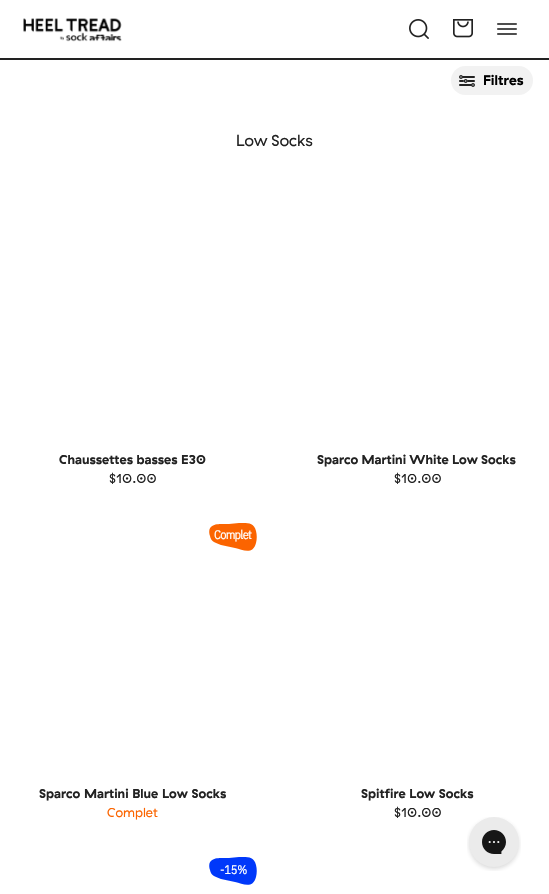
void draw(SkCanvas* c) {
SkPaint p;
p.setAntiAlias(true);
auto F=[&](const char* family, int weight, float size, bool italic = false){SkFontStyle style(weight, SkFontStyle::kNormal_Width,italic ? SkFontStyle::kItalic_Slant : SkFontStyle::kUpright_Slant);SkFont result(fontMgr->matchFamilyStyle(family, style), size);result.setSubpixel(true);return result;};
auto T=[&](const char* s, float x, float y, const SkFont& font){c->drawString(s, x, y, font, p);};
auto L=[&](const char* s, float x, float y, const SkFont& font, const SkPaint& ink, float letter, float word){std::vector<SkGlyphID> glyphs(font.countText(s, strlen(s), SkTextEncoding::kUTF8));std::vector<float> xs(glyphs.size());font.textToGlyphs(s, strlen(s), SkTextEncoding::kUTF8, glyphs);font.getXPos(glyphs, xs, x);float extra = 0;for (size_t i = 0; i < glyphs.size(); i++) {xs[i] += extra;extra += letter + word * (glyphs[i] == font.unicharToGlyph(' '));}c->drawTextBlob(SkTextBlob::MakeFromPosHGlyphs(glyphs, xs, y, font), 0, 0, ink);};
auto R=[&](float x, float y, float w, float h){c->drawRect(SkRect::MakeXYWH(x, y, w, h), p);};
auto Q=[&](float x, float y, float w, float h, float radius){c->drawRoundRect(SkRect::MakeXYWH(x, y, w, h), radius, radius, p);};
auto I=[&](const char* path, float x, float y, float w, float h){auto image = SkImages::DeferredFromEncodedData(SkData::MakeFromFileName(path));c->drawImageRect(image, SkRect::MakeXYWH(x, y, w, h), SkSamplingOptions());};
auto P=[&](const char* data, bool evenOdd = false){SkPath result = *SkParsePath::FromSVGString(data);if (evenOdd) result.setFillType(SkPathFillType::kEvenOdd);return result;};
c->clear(0xffffffff);
p.setColor(0xff222222);
R(0,58,549,2);
I("1.png",23,18,99,24);
I("2.png",409,19,20,20);
I("3.png",453,19,20,19);
I("4.png",497,23,20,12);
p.setColor(0xfff2f2f2);
Q(451,66,82,29,14.5);
I("5.png",459,75,16,12);
auto f1 = F("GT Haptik",700,14);
p.setColor(0xff000000);
T("Filtres",483,85,f1);
auto f2 = F("GT Haptik",400,16);
p.setColor(0xff222222);
L("Low Socks",236,146,f2,p,0,-1);
auto f3 = F("GT Haptik",700,13);
T("Chaussettes basses E30",59,464,f3);
auto f4 = F("GT Haptik",400,13);
T("$10.00",109,483,f4);
L("Sparco Martini White Low Socks",317,464,f3,p,0,-.5);
T("$10.00",394,483,f4);
p.setColor(0xfffb6400);
c->drawPath(P("M256 531c-2-9-9-8-17-8l-10 1c-9 0-23-2-19 12c1 6 6 7 11 9l14 3c8 2 18 7 21-5c1-4 1-8 0-12",true),p);
auto f5 = F("IBM Plex Sans Condensed",700,12);
p.setColor(0xffffffff);
L("Complet",214,539,f5,p,-.5,0);
p.setColor(0xff222222);
T("Sparco Martini Blue Low Socks",39,798,f3);
p.setColor(0xfffb6400);
T("Complet",107,817,f4);
p.setColor(0xff222222);
T("Spitfire Low Socks",361,798,f3);
T("$10.00",394,817,f4);
p.setColor(0xff0038fa);
c->drawPath(P("M256 865c-2-9-9-8-17-8l-10 1c-9 0-23-2-19 12c1 6 6 7 11 9l14 3c8 2 18 7 21-5c1-4 1-8 0-12",true),p);
p.setColor(0xffffffff);
T("-15%",220,874,f5);
I("6.png",467,817,54,54);
}
